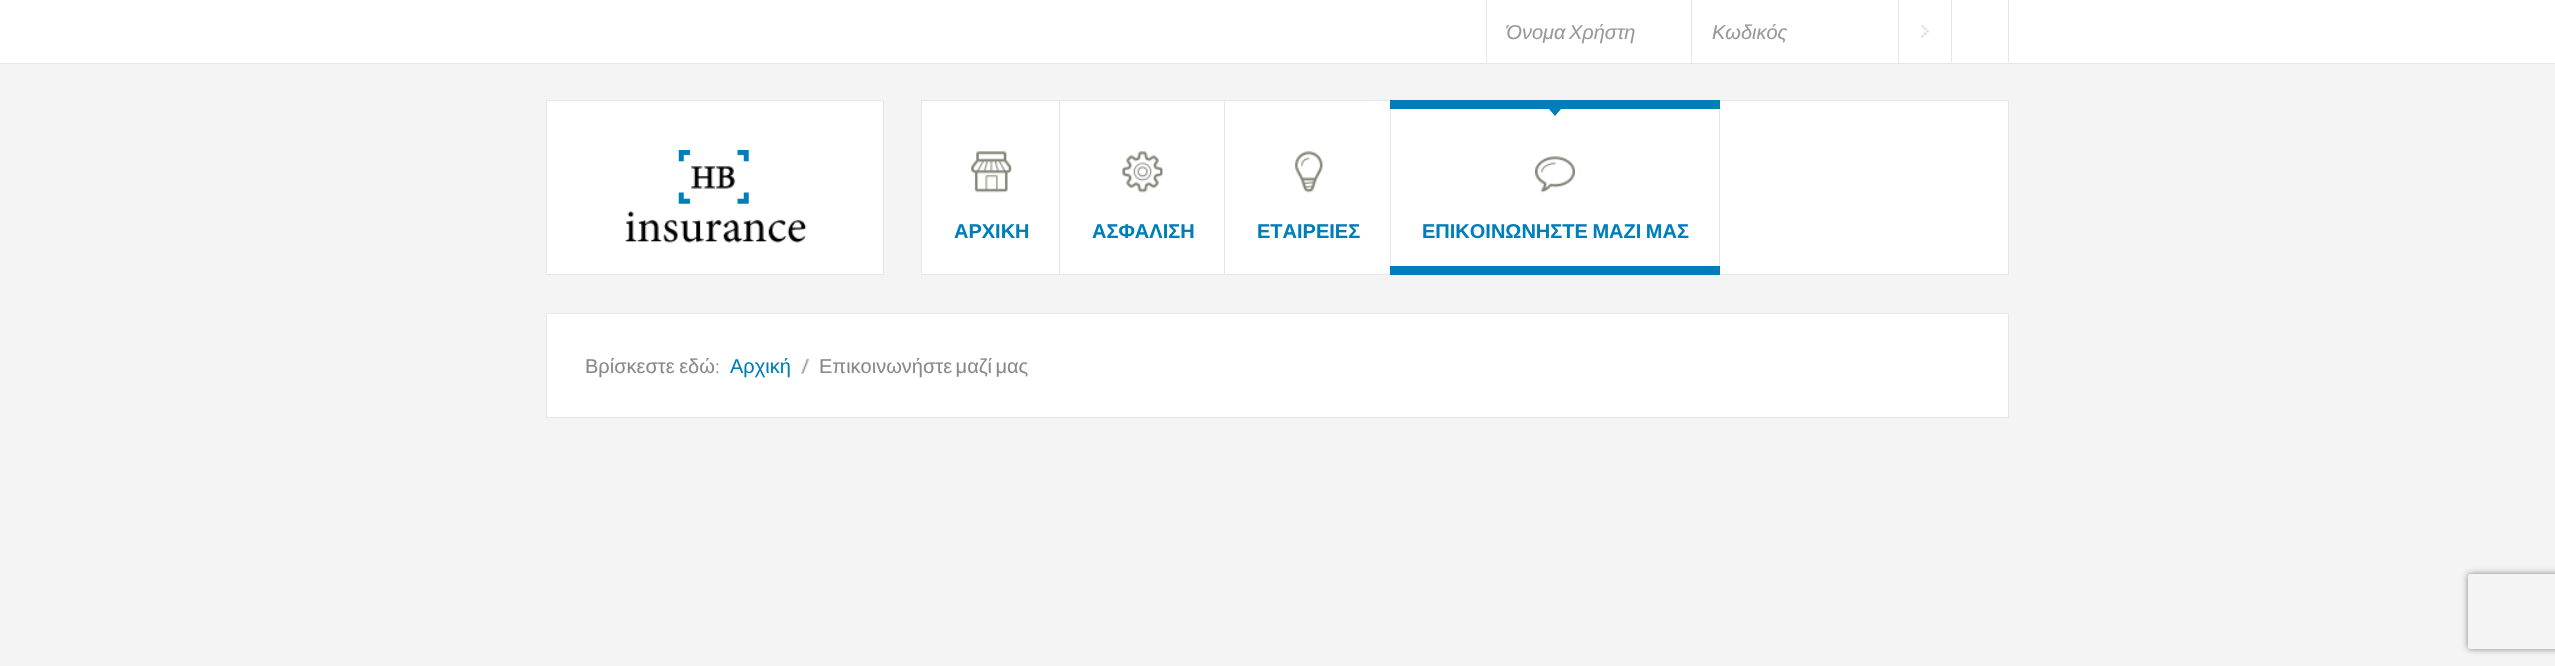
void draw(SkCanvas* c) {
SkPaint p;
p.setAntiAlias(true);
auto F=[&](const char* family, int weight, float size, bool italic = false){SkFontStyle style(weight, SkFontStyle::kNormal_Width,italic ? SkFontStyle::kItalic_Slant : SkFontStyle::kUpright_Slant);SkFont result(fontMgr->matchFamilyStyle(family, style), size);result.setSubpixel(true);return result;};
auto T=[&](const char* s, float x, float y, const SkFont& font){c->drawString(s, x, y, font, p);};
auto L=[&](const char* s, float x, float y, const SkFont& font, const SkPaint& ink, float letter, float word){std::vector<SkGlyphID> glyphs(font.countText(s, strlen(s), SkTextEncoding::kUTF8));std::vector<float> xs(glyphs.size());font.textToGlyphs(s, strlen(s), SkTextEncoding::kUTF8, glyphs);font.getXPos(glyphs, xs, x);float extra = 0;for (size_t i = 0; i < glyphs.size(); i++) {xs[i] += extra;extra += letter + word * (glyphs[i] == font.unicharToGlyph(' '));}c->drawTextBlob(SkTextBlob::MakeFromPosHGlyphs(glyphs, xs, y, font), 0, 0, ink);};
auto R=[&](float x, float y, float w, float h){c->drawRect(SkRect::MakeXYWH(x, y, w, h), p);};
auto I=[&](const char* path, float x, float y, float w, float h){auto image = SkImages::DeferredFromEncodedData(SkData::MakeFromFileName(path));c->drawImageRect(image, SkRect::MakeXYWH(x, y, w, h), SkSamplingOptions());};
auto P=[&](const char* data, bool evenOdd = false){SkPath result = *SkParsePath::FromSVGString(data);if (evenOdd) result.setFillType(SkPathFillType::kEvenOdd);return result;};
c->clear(0xfff4f4f4);
p.setColor(0xffffffff);
R(0,0,2555,63);
p.setColor(0xffe7e7e7);
R(0,63,2555,1);
R(1486,0,1,63);
auto f1 = F("Liberation Sans",400,20,true);
p.setColor(0xff999999);
L("Όνομα Χρήστη",1506,39,f1,p,0,-2);
p.setColor(0xffe7e7e7);
R(1691,0,1,63);
p.setColor(0xff999999);
T("Κωδικός",1712,39,f1);
I("1.png",1921,25,8,13);
p.setColor(0xffe7e7e7);
R(1898,0,1,63);
R(2008,0,1,63);
R(1951,0,1,63);
p.setColor(0xffffffff);
c->drawRect(SkRect::MakeXYWH(546.5,100.5,337,174),p);
p.setStroke(true);
p.setStrokeWidth(1);
p.setColor(0xffe7e7e7);
c->drawRect(SkRect::MakeXYWH(546.5,100.5,337,174),p);
I("2.png",625,150,182,93);
p.setStroke(false);
p.setColor(0xffffffff);
R(1720,101,288,173);
p.setStroke(true);
p.setColor(0xffe7e7e7);
c->drawRect(SkRect::MakeXYWH(921.5,100.5,1087,174),p);
p.setStroke(false);
p.setColor(0xffffffff);
R(922,101,137,173);
p.setStroke(true);
p.setColor(0xffe7e7e7);
c->drawRect(SkRect::MakeXYWH(921.5,100.5,139,174),p);
I("3.png",971,151,41,42);
auto f2 = F("Liberation Sans",700,20);
p.setStroke(false);
p.setColor(0xff017eba);
T("ΑΡΧΙΚΗ",954,238,f2);
p.setColor(0xffffffff);
R(1060,101,164,173);
p.setStroke(true);
p.setColor(0xffe7e7e7);
c->drawRect(SkRect::MakeXYWH(1059.5,100.5,166,174),p);
I("4.png",1122,151,41,42);
p.setStroke(false);
p.setColor(0xff017eba);
T("AΣΦΑΛΙΣΗ",1092,238,f2);
p.setColor(0xffffffff);
R(1225,101,165,173);
p.setStroke(true);
p.setColor(0xffe7e7e7);
c->drawRect(SkRect::MakeXYWH(1224.5,100.5,168,174),p);
I("5.png",1294,151,29,42);
p.setStroke(false);
p.setColor(0xff017eba);
T("ΕΤΑΙΡΕΙΕΣ",1257,238,f2);
p.setColor(0xffffffff);
R(1391,109,328,157);
p.setStroke(true);
p.setColor(0xffe7e7e7);
c->drawRect(SkRect::MakeXYWH(1390.5,100.5,329,174),p);
p.setStroke(false);
p.setColor(0xff017eba);
R(1390,100,330,9);
R(1390,266,330,9);
c->drawPath(P("M1549 109h12l-6 7z"),p);
I("6.png",1535,156,40,37);
L("ΕΠΙΚΟΙΝΩΝΗΣΤΕ ΜΑΖΙ ΜΑΣ",1422,238,f2,p,0,-1);
p.setColor(0xffffffff);
c->drawRect(SkRect::MakeXYWH(546.5,313.5,1462,104),p);
p.setStroke(true);
p.setColor(0xffe7e7e7);
c->drawRect(SkRect::MakeXYWH(546.5,313.5,1462,104),p);
auto f3 = F("Liberation Sans",400,20);
p.setStroke(false);
p.setColor(0xff898989);
L("Βρίσκεστε εδώ",585,373,f3,p,0,-1);
auto f4 = F("Lato",300,20);
T(":",715,373,f4);
p.setColor(0xff017eba);
T("Αρχική",730,373,f3);
I("7.png",801,358,8,16);
p.setColor(0xff898989);
L("Επικοινωνήστε μαζί μας",819,373,f3,p,0,-2);
c->save();
c->clipPath(P("M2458 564h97v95h-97zm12.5 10h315c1.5 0 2.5 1 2.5 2.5v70c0 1.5-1 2.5-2.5 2.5h-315c-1.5 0-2.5-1-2.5-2.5v-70c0-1.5 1-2.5 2.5-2.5z",true),true);
p.setColor(0xff808080);
p.setMaskFilter(SkMaskFilter::MakeBlur(kNormal_SkBlurStyle, 3));
c->drawRoundRect(SkRect::MakeXYWH(2468,574,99,75),2.5,2.5,p);
p.setMaskFilter(nullptr);
c->restore();
}
